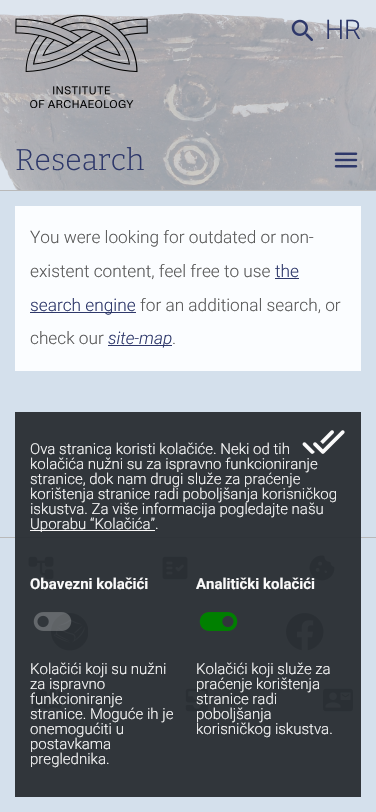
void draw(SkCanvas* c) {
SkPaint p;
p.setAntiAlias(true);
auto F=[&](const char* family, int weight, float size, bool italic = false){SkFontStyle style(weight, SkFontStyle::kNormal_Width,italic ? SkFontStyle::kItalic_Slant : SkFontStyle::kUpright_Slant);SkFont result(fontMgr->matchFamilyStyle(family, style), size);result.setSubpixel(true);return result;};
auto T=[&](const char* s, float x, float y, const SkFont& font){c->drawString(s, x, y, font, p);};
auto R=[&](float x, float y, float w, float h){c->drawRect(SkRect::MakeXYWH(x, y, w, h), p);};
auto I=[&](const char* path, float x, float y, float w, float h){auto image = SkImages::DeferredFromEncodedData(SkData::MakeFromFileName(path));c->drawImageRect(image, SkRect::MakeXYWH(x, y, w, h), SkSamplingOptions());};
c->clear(0xffd4e0ec);
p.setColor(0xff31363b);
R(15,412,346,385);
I("1.png",0,0,376,190);
I("2.png",15,15,133,93);
I("3.png",291,19,22,22);
auto f1 = F("Roboto",300,27);
p.setColor(0xff2e386a);
T("HR",325,39,f1);
auto f2 = F("Bitter",300,30);
T("Research",15,170,f2);
I("4.png",334,152,24,16);
p.setColor(0xffb9b9b9);
R(0,190,376,1);
R(0,537,376,1);
p.setColor(0xff2f3439);
R(15,537,346,1);
p.setColor(0xfffbfdff);
R(15,206,346,165);
auto f3 = F("Roboto",300,17.25);
p.setColor(0xff5a5a5a);
T("You were looking for outdated or non-",30,243,f3);
T("existent content, feel free to use",30,277,f3);
p.setColor(0xff2e386a);
T("the",275,277,f3);
R(275,278,24,1);
R(30,312,106,1);
T("search engine",30,311,f3);
p.setColor(0xff5a5a5a);
T("for an additional search, or",140,311,f3);
T("check our",30,344,f3);
p.setColor(0xff2e386a);
R(108,345,64,1);
auto f4 = F("Roboto",300,17.25,true);
T("site-map",108,344,f4);
p.setColor(0xff5a5a5a);
T(".",172,344,f3);
I("5.png",302,430,43,24);
auto f5 = F("Roboto",300,15);
p.setColor(0xfffafafa);
T("Ova stranica koristi kolačiće. Neki od tih",30,454,f5);
T("kolačića nužni su za ispravno funkcioniranje",30,469,f5);
T("stranice, dok nam drugi služe za praćenje",30,484,f5);
T("korištenja stranice radi poboljšanja korisničkog",30,499,f5);
T("iskustva. Za više informacija pogledajte našu",30,514,f5);
R(30,530,125,1);
T("Uporabu “Kolačića”.",30,529,f5);
I("8.png",28,556,26,24);
auto f6 = F("Roboto",700,15);
T("Obavezni kolačići",30,589,f6);
I("11.png",51,613,37,38);
I("6.png",33,612,39,19);
T("Kolačići koji su nužni",30,674,f5);
I("13.png",33,686,28,24);
T("za ispravno",30,689,f5);
T("funkcioniranje",30,704,f5);
T("stranice. Moguće ih je",30,719,f5);
T("onemogućiti u",30,734,f5);
T("postavkama",30,749,f5);
T("preglednika.",30,764,f5);
I("10.png",309,555,26,26);
T("Analitički kolačići",196,589,f6);
I("7.png",199,612,39,19);
T("Kolačići koji služe za",196,674,f5);
I("14.png",185,688,24,24);
T("praćenje korištenja",196,689,f5);
T("stranice radi",196,704,f5);
T("poboljšanja",196,719,f5);
T("korisničkog iskustva.",196,734,f5);
I("9.png",162,556,26,24);
I("12.png",286,613,38,38);
I("15.png",323,688,30,24);
}
